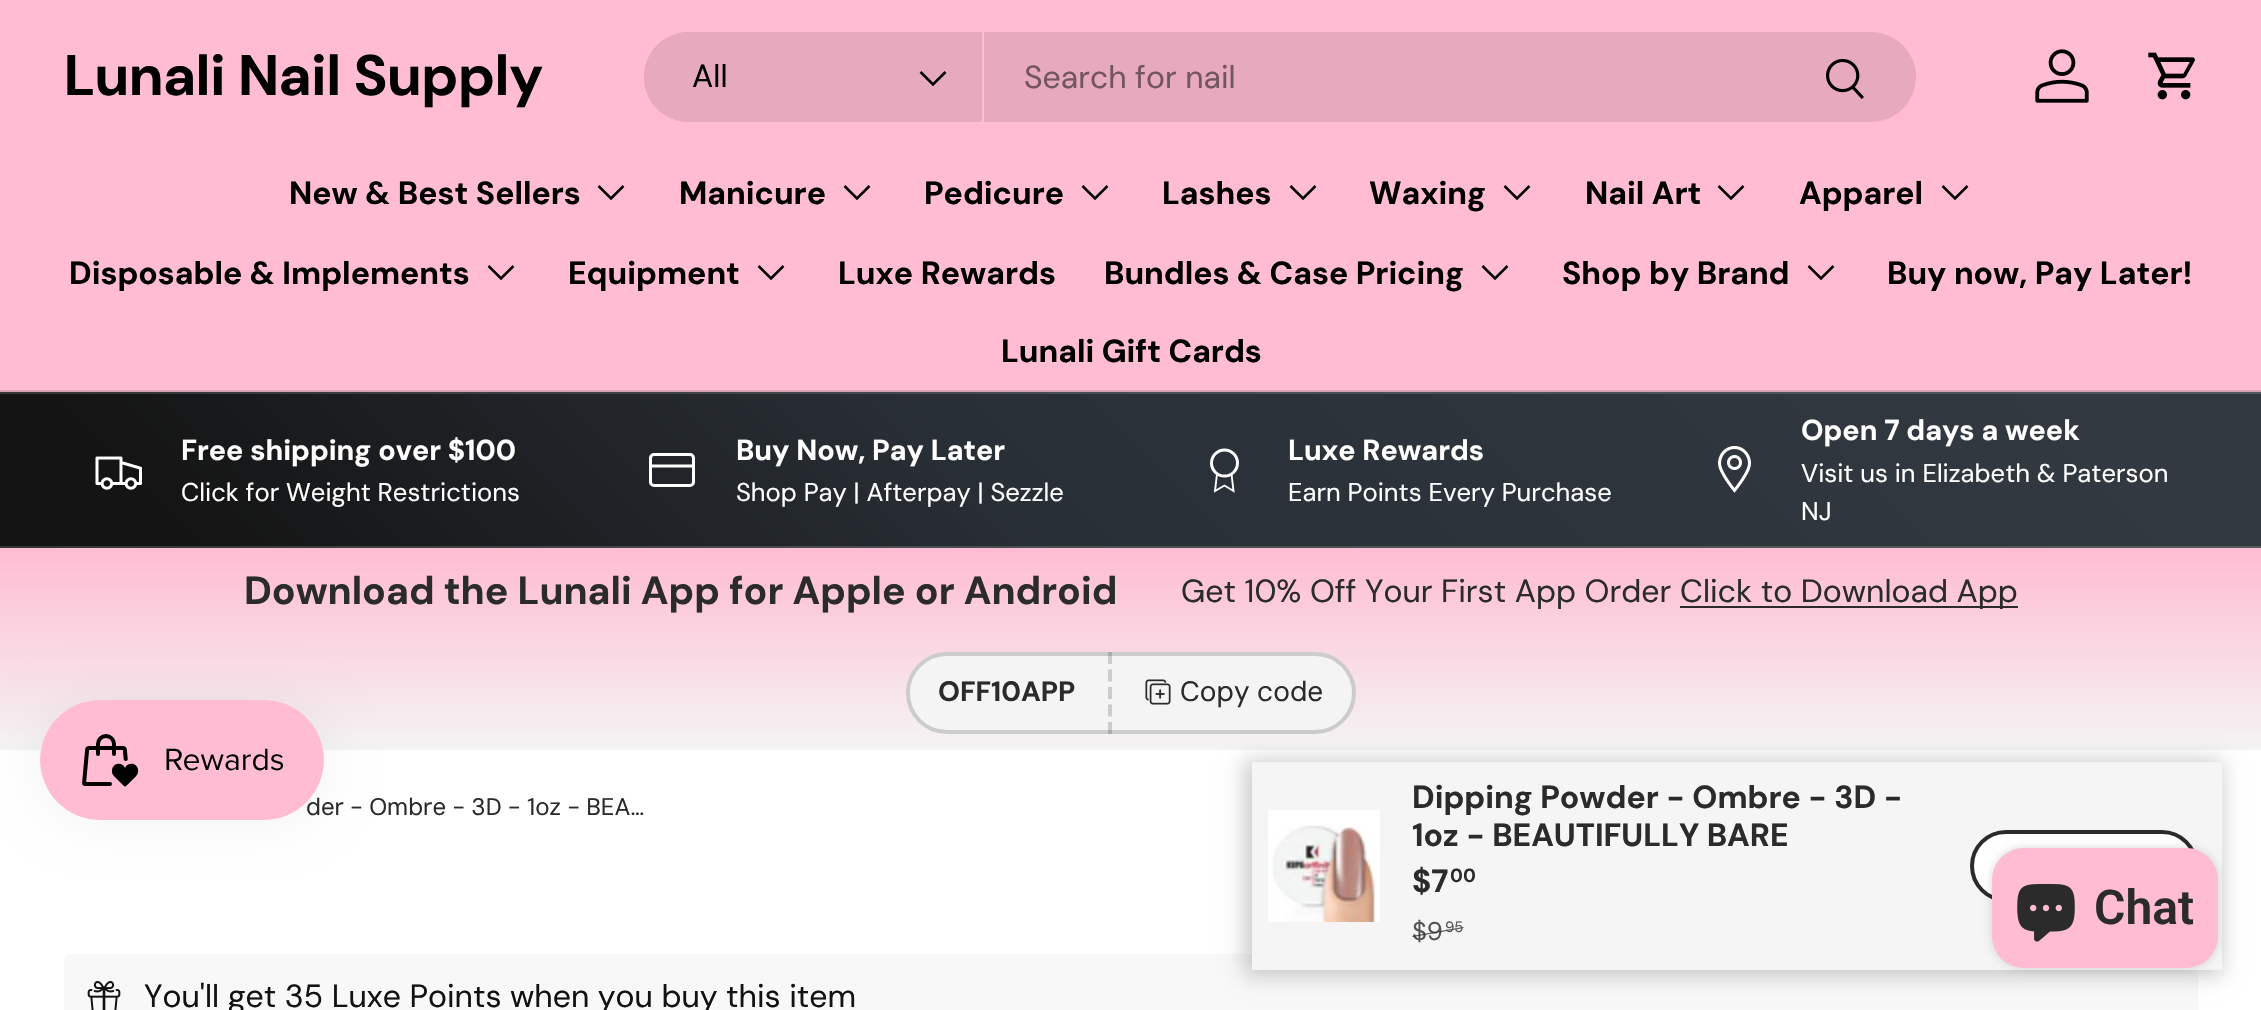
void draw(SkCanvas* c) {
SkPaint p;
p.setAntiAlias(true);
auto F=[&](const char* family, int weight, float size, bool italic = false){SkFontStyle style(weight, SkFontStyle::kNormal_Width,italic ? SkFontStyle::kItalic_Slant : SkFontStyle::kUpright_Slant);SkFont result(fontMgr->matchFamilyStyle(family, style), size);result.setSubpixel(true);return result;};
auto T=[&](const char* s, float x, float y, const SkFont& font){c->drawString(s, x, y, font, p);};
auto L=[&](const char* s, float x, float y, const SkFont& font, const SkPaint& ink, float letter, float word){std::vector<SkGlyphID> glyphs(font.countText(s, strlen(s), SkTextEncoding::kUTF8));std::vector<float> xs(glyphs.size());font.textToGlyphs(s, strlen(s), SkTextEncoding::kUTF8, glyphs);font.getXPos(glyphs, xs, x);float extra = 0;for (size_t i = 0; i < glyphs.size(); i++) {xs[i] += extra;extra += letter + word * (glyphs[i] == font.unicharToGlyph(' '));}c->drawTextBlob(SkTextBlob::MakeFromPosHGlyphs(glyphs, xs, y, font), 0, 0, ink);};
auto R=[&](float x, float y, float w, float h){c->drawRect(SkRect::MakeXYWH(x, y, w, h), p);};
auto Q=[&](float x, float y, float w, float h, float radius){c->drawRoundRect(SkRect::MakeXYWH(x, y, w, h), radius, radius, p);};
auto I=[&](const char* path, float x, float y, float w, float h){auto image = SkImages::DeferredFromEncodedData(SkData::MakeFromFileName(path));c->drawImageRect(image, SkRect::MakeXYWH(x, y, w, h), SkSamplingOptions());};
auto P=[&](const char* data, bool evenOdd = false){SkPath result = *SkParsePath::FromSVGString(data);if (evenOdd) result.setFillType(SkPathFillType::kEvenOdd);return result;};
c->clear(0xffffffff);
p.setColor(0xffffbcd2);
R(0,0,2261,390);
p.setColor(0xffd9a0b3);
R(0,390,2261,2);
auto f1 = F("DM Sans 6",700,57);
p.setColor(0xff000000);
T("Lunali Nail Supply",64,95,f1);
p.setColor(0xffe6a9bd);
Q(644,32,1272,90,45);
c->drawPath(P("M689 32h295v90h-295c-25 0-45-20-45-45c0-25 20-45 45-45z"),p);
p.setColor(0xffffbcd2);
R(982,32,2,90);
auto f2 = F("DM Sans",400,32);
p.setColor(0xff000000);
T("All",692,87,f2);
p.setStroke(true);
p.setStrokeWidth(2.5);
c->drawPath(P("M945.5 72l-12.5 12.5l-12.5-12.5"),p);
p.setStroke(false);
p.setColor(0xff73555f);
T("Search for nail",1024,88,f2);
I("1.png",1826,58,38,41);
I("2.png",2035,49,54,54);
I("3.png",2148,52,47,48);
auto f3 = F("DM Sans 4",700,32);
p.setColor(0xff000000);
T("New & Best Sellers",289,204,f3);
p.setStroke(true);
c->drawPath(P("M623.5 186l-12.5 12.5l-12.5-12.5"),p);
p.setStroke(false);
T("Manicure",679,204,f3);
p.setStroke(true);
c->drawPath(P("M869.5 186l-12.5 12.5l-12.5-12.5"),p);
p.setStroke(false);
T("Pedicure",924,204,f3);
p.setStroke(true);
c->drawPath(P("M1107.5 186l-12.5 12.5l-12.5-12.5"),p);
p.setStroke(false);
T("Lashes",1162,204,f3);
p.setStroke(true);
c->drawPath(P("M1315.5 186l-12.5 12.5l-12.5-12.5"),p);
p.setStroke(false);
T("Waxing",1369,204,f3);
p.setStroke(true);
c->drawPath(P("M1529.5 186l-12.5 12.5l-12.5-12.5"),p);
p.setStroke(false);
T("Nail Art",1585,204,f3);
p.setStroke(true);
c->drawPath(P("M1743.5 186l-12.5 12.5l-12.5-12.5"),p);
p.setStroke(false);
T("Apparel",1799,204,f3);
p.setStroke(true);
c->drawPath(P("M1967.5 186l-12.5 12.5l-12.5-12.5"),p);
p.setStroke(false);
T("Disposable & Implements",69,284,f3);
p.setStroke(true);
c->drawPath(P("M513.5 266l-12.5 12.5l-12.5-12.5"),p);
p.setStroke(false);
T("Equipment",568,284,f3);
p.setStroke(true);
c->drawPath(P("M783.5 266l-12.5 12.5l-12.5-12.5"),p);
p.setStroke(false);
T("Luxe Rewards",838,284,f3);
T("Bundles & Case Pricing",1104,284,f3);
p.setStroke(true);
c->drawPath(P("M1507.5 266l-12.5 12.5l-12.5-12.5"),p);
p.setStroke(false);
T("Shop by Brand",1562,284,f3);
p.setStroke(true);
c->drawPath(P("M1833.5 266l-12.5 12.5l-12.5-12.5"),p);
p.setStroke(false);
T("Buy now, Pay Later!",1887,284,f3);
T("Lunali Gift Cards",1001,362,f3);
{
const SkColor colors[] = {0xff51575d,0xff494e54,0xff373737};
const float stops[] = {.08,.56,.92};
const SkPoint ends[] = {{1735,-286}, {528,922}};
p.setShader(SkGradientShader::MakeLinear(ends, colors, stops, 3, SkTileMode::kClamp));
p.setAlpha(255);
}
R(0,392,2261,2);
{
const SkColor colors[] = {0xff323940,0xff292f36,0xff141414};
const float stops[] = {.08,.56,.92};
const SkPoint ends[] = {{1735,-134}, {528,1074}};
p.setShader(SkGradientShader::MakeLinear(ends, colors, stops, 3, SkTileMode::kClamp));
p.setAlpha(255);
}
R(0,394,2261,152);
{
const SkColor colors[] = {0xff51575d,0xff494e54,0xff373737};
const float stops[] = {.08,.56,.92};
const SkPoint ends[] = {{1735,18}, {528,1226}};
p.setShader(SkGradientShader::MakeLinear(ends, colors, stops, 3, SkTileMode::kClamp));
p.setAlpha(255);
}
R(0,546,2261,2);
I("4.png",95,456,47,34);
auto f4 = F("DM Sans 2",700,28.75);
p.setShader(nullptr);
p.setColor(0xffffffff);
T("Free shipping over $100",181,460,f4);
auto f5 = F("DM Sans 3",400,25.6);
T("Click for Weight Restrictions",181,501,f5);
p.setStroke(true);
p.setStrokeWidth(3);
c->drawRoundRect(SkRect::MakeXYWH(650.5,454.5,43,31),3.5,3.5,p);
c->drawPath(P("M651 466h42.5"),p);
p.setStroke(false);
T("Buy Now, Pay Later",736,460,f4);
T("Shop Pay | Afterpay | Sezzle",736,501,f5);
p.setStroke(true);
c->drawCircle(1224.5,463,13,p);
p.setStrokeWidth(1.9);
c->drawPath(P("M1217 474l-2 17l9.5-5.5l9 5.5l-2-17"),p);
p.setStroke(false);
T("Luxe Rewards",1288,460,f4);
T("Earn Points Every Purchase",1288,501,f5);
I("5.png",1718,446,33,47);
T("Open 7 days a week",1801,440,f4);
T("Visit us in Elizabeth & Paterson",1801,482,f5);
T("NJ",1801,520,f5);
{
const SkColor colors[] = {0xffffbcd2,0xfff4f4f4};
const float stops[] = {0,1};
const SkPoint ends[] = {{1131,548}, {1131,750}};
p.setShader(SkGradientShader::MakeLinear(ends, colors, stops, 2, SkTileMode::kClamp));
p.setAlpha(255);
}
R(0,548,2261,202);
p.setShader(nullptr);
p.setColor(0x0d000000);
p.setMaskFilter(SkMaskFilter::MakeBlur(kNormal_SkBlurStyle, 25));
c->drawRoundRect(SkRect::MakeXYWH(40,700,284,120),60,60,p);
p.setMaskFilter(nullptr);
auto f6 = F("DM Sans 2",400,24);
p.setColor(0xff2a2b2a);
L("der - Ombre - 3D - 1oz - BEA…",306,815,f6,p,0,-.25);
I("6.png",40,700,284,120);
auto f7 = F("DM Sans",700,39.2);
T("Download the Lunali App for Apple or Android",244,604,f7);
T("Get 10% Off Your First App Order",1181,602,f2);
R(1680,606,338,2);
T("Click to Download App",1680,602,f2);
p.setColor(0xfff4f4f4);
Q(906,652,450,82,41);
p.setStroke(true);
p.setStrokeWidth(4);
p.setColor(0x332a2b2a);
c->drawRoundRect(SkRect::MakeXYWH(908,654,446,78),39,39,p);
auto f8 = F("DM Sans 3",700,28);
p.setStroke(false);
p.setColor(0xff2a2b2a);
T("OFF10APP",938,701,f8);
p.setStroke(true);
p.setColor(0x332a2b2a);
p.setPathEffect(SkDashPathEffect::Make({{12,5.5f}}, 0));
c->drawPath(P("M1110 652v82"),p);
p.setPathEffect(nullptr);
I("7.png",1145,679,26,26);
auto f9 = F("DM Sans 2",400,28);
p.setStroke(false);
p.setColor(0xff2a2b2a);
T("Copy code",1180,701,f9);
p.setColor(0xfff8f8f8);
Q(64,954,2134,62,6);
p.setColor(0x33000000);
p.setMaskFilter(SkMaskFilter::MakeBlur(kNormal_SkBlurStyle, 10));
c->drawRect(SkRect::MakeXYWH(1244,760,978,216),p);
p.setMaskFilter(nullptr);
p.setColor(0xfff5f5f5);
R(1252,762,970,208);
I("8.png",1268,810,112,112);
p.setColor(0xff2a2b2a);
T("Dipping Powder - Ombre - 3D -",1412,808,f3);
T("1oz - BEAUTIFULLY BARE",1412,846,f3);
T("$7",1412,892,f3);
auto f10 = F("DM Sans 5",700,19);
T("00",1450,882,f10);
p.setColor(0xff535353);
T("$9",1412,940,f5);
p.setColor(0xcc2a2b2a);
c->drawPath(P("M1412 936l51-9l1 1l-51 9z"),p);
auto f11 = F("DM Sans 2",400,15);
p.setColor(0xff535353);
T("95",1445,932,f11);
c->save();
c->clipPath(P("M2006 830h156c20 0 36 16 36 36c0 20-16 36-36 36h-156c-20 0-36-16-36-36c0-20 16-36 36-36z"),true);
{
const SkColor colors[] = {0x122a2b2a,0xffffffff,0xffffffff};
const float stops[] = {.6,.6,1};
const SkPoint ends[] = {{1546,787}, {2182,945}};
p.setShader(SkGradientShader::MakeLinear(ends, colors, stops, 3, SkTileMode::kClamp));
p.setAlpha(255);
}
R(1970,834,224,64);
c->restore();
p.setStroke(true);
p.setShader(nullptr);
p.setColor(0xff2a2b2a);
c->drawRoundRect(SkRect::MakeXYWH(1972,832,224,68),34,34,p);
I("9.png",87,981,34,29);
p.setStroke(false);
p.setColor(0xff121212);
T("You'll get 35 Luxe Points when you buy this item",144,1007,f2);
p.setColor(0x26000000);
p.setMaskFilter(SkMaskFilter::MakeBlur(kNormal_SkBlurStyle, 5));
c->drawRoundRect(SkRect::MakeXYWH(1992,848,226,120),32,32,p);
p.setMaskFilter(nullptr);
p.setColor(0xffffbcd2);
Q(1992,848,226,120,32);
I("10.png",2017,884,58,58);
auto f12 = F("Roboto",600,48);
p.setColor(0xff2a2b2a);
T("Chat",2094,924,f12);
}
